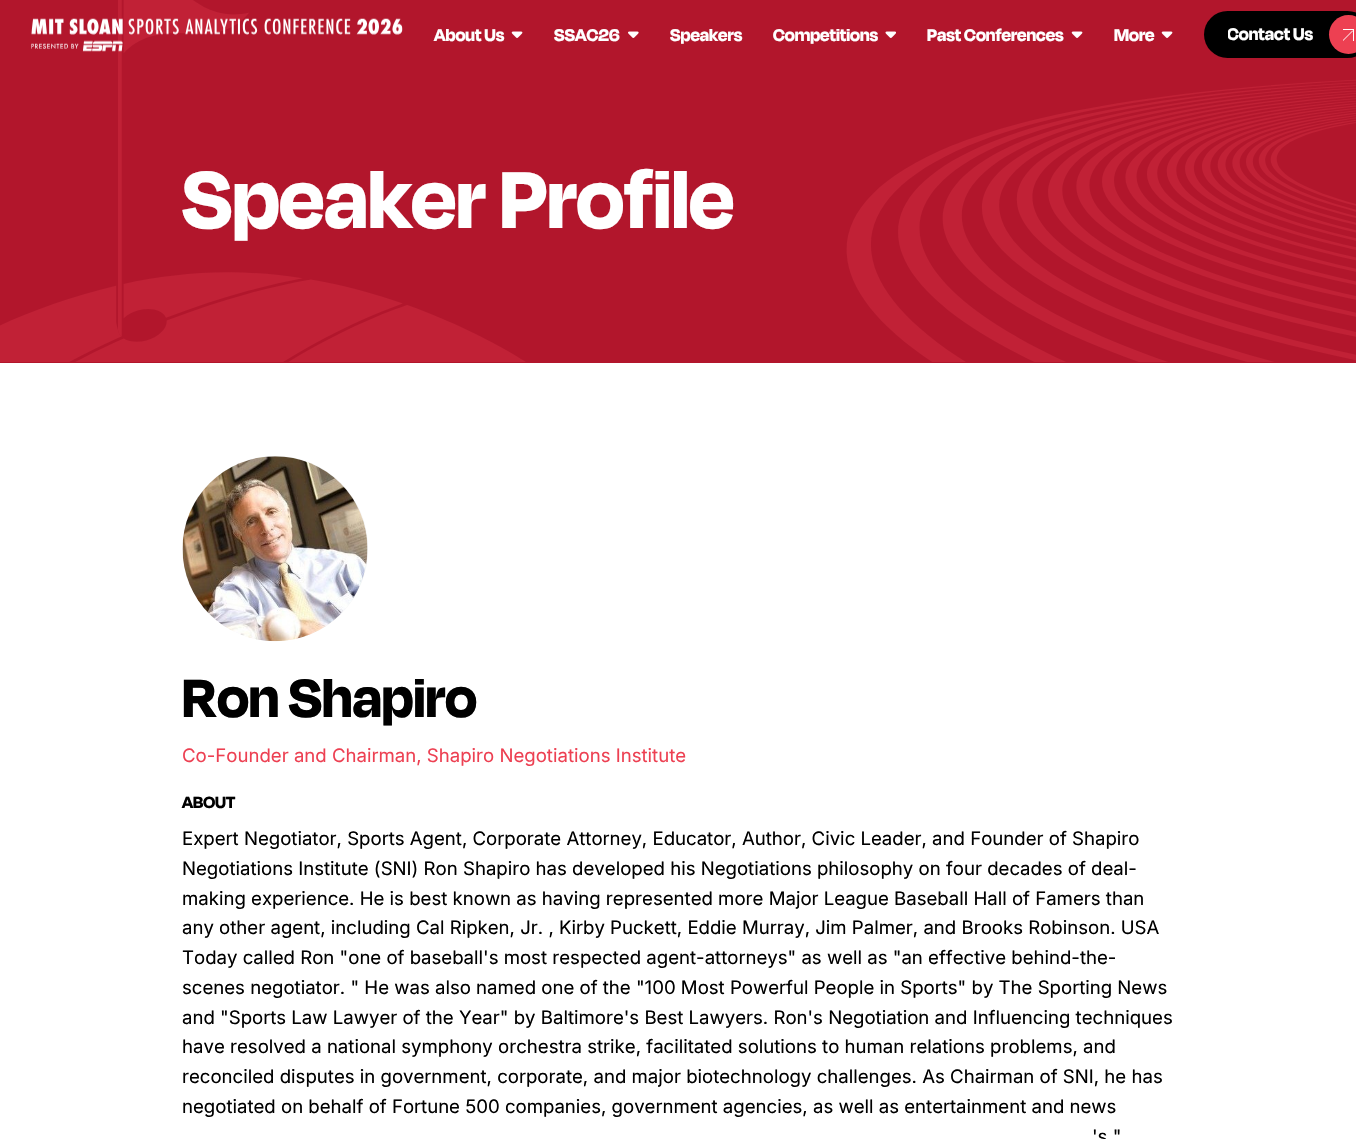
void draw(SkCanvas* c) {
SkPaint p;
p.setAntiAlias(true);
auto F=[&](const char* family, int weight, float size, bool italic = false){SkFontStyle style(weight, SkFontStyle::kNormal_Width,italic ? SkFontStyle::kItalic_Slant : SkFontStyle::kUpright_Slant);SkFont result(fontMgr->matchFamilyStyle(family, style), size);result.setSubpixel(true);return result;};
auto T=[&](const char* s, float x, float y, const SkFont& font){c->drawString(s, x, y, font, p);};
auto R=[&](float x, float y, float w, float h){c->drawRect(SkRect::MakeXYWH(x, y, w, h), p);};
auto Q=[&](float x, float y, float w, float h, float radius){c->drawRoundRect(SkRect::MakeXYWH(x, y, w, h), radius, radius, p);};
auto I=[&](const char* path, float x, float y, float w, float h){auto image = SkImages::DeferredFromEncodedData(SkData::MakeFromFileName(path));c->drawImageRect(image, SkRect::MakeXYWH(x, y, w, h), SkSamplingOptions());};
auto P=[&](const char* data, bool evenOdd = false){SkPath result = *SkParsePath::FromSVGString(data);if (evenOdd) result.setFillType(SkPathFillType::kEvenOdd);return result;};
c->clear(0xffffffff);
p.setColor(0xffb2162c);
R(0,0,1356,363);
I("5.png",0,0,1356,362);
I("1.png",31,18,372,34);
auto f1 = F("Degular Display",700,19.5);
p.setColor(0xffffffff);
T("About Us",434,41,f1);
I("2.png",511,31,12,7);
T("SSAC26",554,41,f1);
I("3.png",628,31,11,7);
T("Speakers",670,41,f1);
T("Competitions",773,41,f1);
I("4.png",885,31,11,7);
T("Past Conferences",927,41,f1);
I("2.png",1071,31,12,7);
T("More",1114,41,f1);
I("2.png",1161,31,12,7);
p.setColor(0xff000000);
Q(1204,11,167,47,23.5);
c->save();
c->clipRect(SkRect::MakeXYWH(1228,24,85,19));
p.setColor(0xffffffff);
T("Contact Us",1227,40,f1);
c->restore();
p.setColor(0xffed4052);
c->drawCircle(1348.5,34.5,19.5,p);
p.setColor(0xffffffff);
R(1343,29,11,1);
R(1353,29,1,12);
c->save();
c->clipRect(SkRect::MakeXYWH(1343,30,10,11));
c->drawPath(P("M1341.5 41.5l11-11l.5 .5l-11 11z"),p);
c->restore();
auto f2 = F("Degular Display",700,93);
T("Speaker Profile",182,228,f2);
p.setColor(0xfff3f3f3);
c->drawCircle(275.5,548.5,92.5,p);
I("6.png",182,456,186,186);
auto f3 = F("Degular Display",700,62);
p.setColor(0xff000000);
T("Ron Shapiro",182,717,f3);
auto f4 = F("Inter",400,18.6);
p.setColor(0xffed4052);
T("Co-Founder and Chairman, Shapiro Negotiations Institute",182,762,f4);
auto f5 = F("Degular Display",700,18.6);
p.setColor(0xff000000);
T("ABOUT",182,808,f5);
T("Expert Negotiator, Sports Agent, Corporate Attorney, Educator, Author, Civic Leader, and Founder of Shapiro",182,845,f4);
T("Negotiations Institute (SNI) Ron Shapiro has developed his Negotiations philosophy on four decades of deal-",182,875,f4);
T("making experience. He is best known as having represented more Major League Baseball Hall of Famers than",182,905,f4);
T("any other agent, including Cal Ripken, Jr. , Kirby Puckett, Eddie Murray, Jim Palmer, and Brooks Robinson. USA",182,934,f4);
T("Today called Ron \"one of baseball's most respected agent-attorneys\" as well as \"an effective behind-the-",182,964,f4);
T("scenes negotiator. \" He was also named one of the \"100 Most Powerful People in Sports\" by The Sporting News",182,994,f4);
T("and \"Sports Law Lawyer of the Year\" by Baltimore's Best Lawyers. Ron's Negotiation and Influencing techniques",182,1024,f4);
T("have resolved a national symphony orchestra strike, facilitated solutions to human relations problems, and",182,1053,f4);
T("reconciled disputes in government, corporate, and major biotechnology challenges. As Chairman of SNI, he has",182,1083,f4);
T("negotiated on behalf of Fortune 500 companies, government agencies, as well as entertainment and news",182,1113,f4);
T("'s \"",1092,1143,f4);
}
